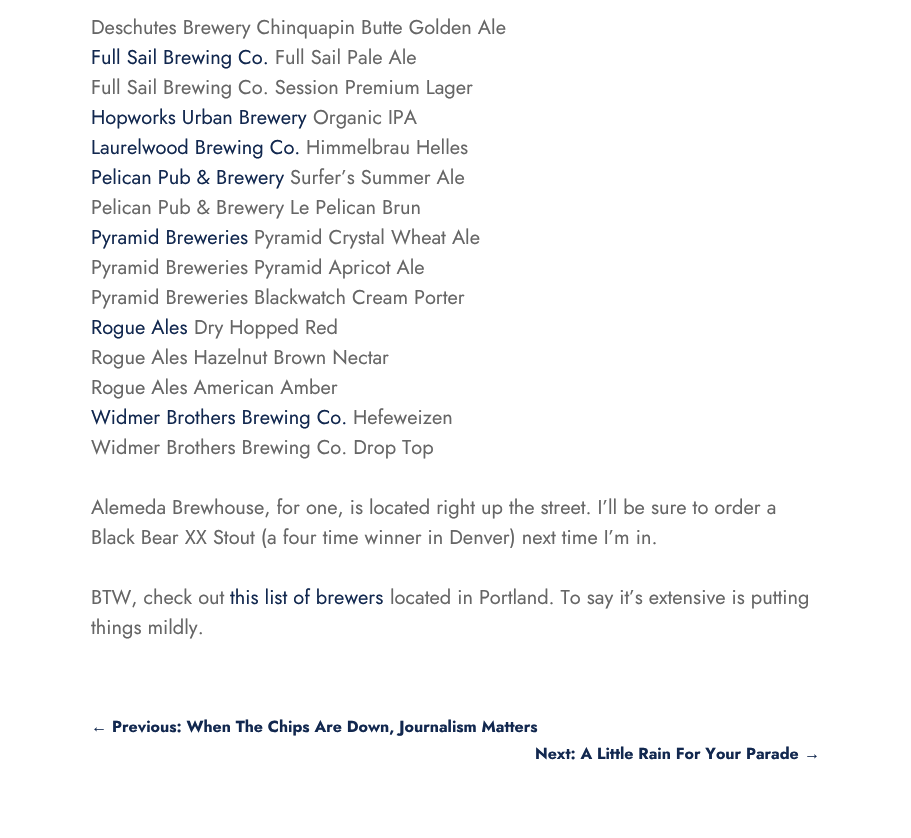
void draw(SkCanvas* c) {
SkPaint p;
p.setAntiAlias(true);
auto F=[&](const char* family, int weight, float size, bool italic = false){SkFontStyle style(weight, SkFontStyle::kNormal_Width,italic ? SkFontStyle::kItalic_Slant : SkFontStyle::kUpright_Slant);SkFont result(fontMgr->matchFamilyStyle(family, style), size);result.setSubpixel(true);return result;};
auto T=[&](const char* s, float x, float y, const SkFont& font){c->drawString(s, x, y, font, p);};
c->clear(0xffffffff);
auto f1 = F("Jost",400,20);
p.setColor(0xff666666);
T("Deschutes Brewery Chinquapin Butte Golden Ale",91,34,f1);
p.setColor(0xff12284f);
T("Full Sail Brewing Co.",91,64,f1);
p.setColor(0xff666666);
T("Full Sail Pale Ale",275,64,f1);
T("Full Sail Brewing Co. Session Premium Lager",91,94,f1);
p.setColor(0xff12284f);
T("Hopworks Urban Brewery",91,124,f1);
p.setColor(0xff666666);
T("Organic IPA",313,124,f1);
p.setColor(0xff12284f);
T("Laurelwood Brewing Co.",91,154,f1);
p.setColor(0xff666666);
T("Himmelbrau Helles",306,154,f1);
p.setColor(0xff12284f);
T("Pelican Pub & Brewery",91,184,f1);
p.setColor(0xff666666);
T("Surfer’s Summer Ale",290,184,f1);
T("Pelican Pub & Brewery Le Pelican Brun",91,214,f1);
p.setColor(0xff12284f);
T("Pyramid Breweries",91,244,f1);
p.setColor(0xff666666);
T("Pyramid Crystal Wheat Ale",254,244,f1);
T("Pyramid Breweries Pyramid Apricot Ale",91,274,f1);
T("Pyramid Breweries Blackwatch Cream Porter",91,304,f1);
p.setColor(0xff12284f);
T("Rogue Ales",91,334,f1);
p.setColor(0xff666666);
T("Dry Hopped Red",194,334,f1);
T("Rogue Ales Hazelnut Brown Nectar",91,364,f1);
T("Rogue Ales American Amber",91,394,f1);
p.setColor(0xff12284f);
T("Widmer Brothers Brewing Co.",91,424,f1);
p.setColor(0xff666666);
T("Hefeweizen",353,424,f1);
T("Widmer Brothers Brewing Co. Drop Top",91,454,f1);
T("Alemeda Brewhouse, for one, is located right up the street. I’ll be sure to order a",91,514,f1);
T("Black Bear XX Stout (a four time winner in Denver) next time I’m in.",91,544,f1);
T("BTW, check out",91,604,f1);
p.setColor(0xff12284f);
T("this list of brewers",230,604,f1);
p.setColor(0xff666666);
T("located in Portland. To say it’s extensive is putting",390,604,f1);
T("things mildly.",91,634,f1);
auto f2 = F("Liberation Sans",700,16);
p.setColor(0xff12284f);
T("←",91,732,f2);
auto f3 = F("Jost",700,16);
T("Previous: When The Chips Are Down, Journalism Matters",112,732,f3);
T("Next: A Little Rain For Your Parade",535,759,f3);
T("→",804,759,f2);
}
